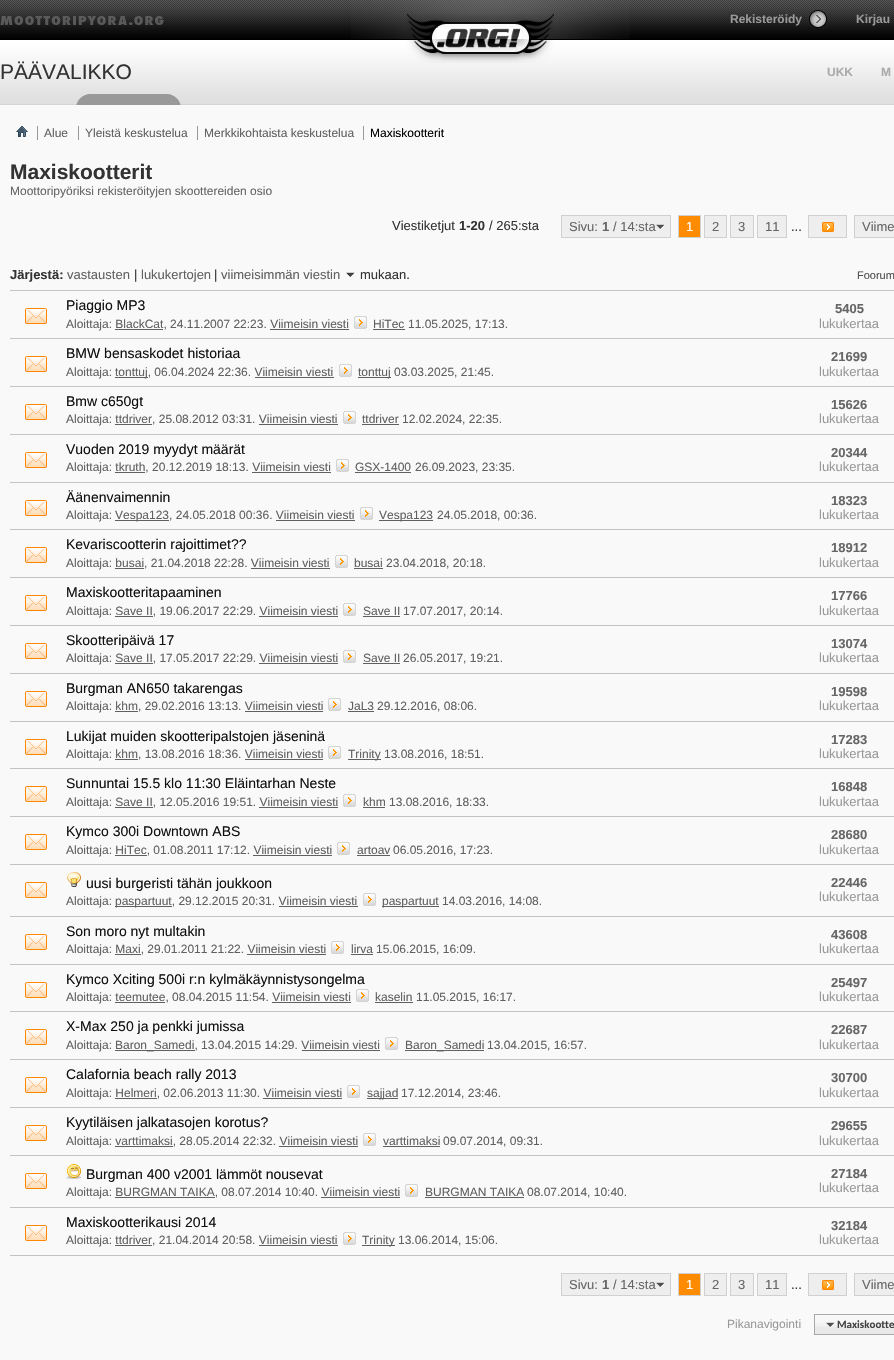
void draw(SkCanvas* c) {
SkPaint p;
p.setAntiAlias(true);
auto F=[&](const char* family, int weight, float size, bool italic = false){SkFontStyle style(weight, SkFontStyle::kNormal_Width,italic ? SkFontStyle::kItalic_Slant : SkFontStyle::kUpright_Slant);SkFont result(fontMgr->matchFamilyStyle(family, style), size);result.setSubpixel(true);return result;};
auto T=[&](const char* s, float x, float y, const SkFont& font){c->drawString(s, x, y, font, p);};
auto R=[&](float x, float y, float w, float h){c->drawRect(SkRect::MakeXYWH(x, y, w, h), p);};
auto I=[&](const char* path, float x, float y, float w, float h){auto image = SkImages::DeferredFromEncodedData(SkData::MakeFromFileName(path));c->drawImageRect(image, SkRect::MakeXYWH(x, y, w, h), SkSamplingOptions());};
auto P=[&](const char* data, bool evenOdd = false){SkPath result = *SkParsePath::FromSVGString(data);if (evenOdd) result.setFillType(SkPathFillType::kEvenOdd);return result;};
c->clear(0xffd4d4d4);
I("1.png",0,0,894,104);
I("2.png",351,0,279,39);
I("3.png",0,16,164,9);
I("4.png",407,14,147,49);
auto f1 = F("Liberation Sans",700,12);
p.setColor(0xff999999);
T("Rekisteröidy",730,23,f1);
I("5.png",809,10,18,18);
T("Kirjau",856,23,f1);
auto f2 = F("Liberation Sans",400,21);
p.setColor(0xff333333);
T("PÄÄVALIKKO",0,79,f2);
p.setColor(0xff999999);
c->drawPath(P("M90 94h77c7.5 0 14 6.5 14 14v-3h-105v3c0-7.5 6.5-14 14-14z"),p);
p.setColor(0xffaaaaaa);
T("UKK",827,76,f1);
T("M",881,76,f1);
p.setColor(0xfff9f9f9);
R(0,105,894,1255);
I("6.png",16,126,12,11);
auto f3 = F("Liberation Sans",400,12);
p.setColor(0xff606060);
T("Alue",44,137,f3);
p.setColor(0xff999999);
R(37,126,1,14);
p.setColor(0xff606060);
T("Yleistä keskustelua",85,137,f3);
p.setColor(0xff999999);
R(78,126,1,14);
p.setColor(0xff606060);
T("Merkkikohtaista keskustelua",204,137,f3);
p.setColor(0xff999999);
R(197,126,1,14);
p.setColor(0xff000000);
T("Maxiskootterit",370,137,f3);
p.setColor(0xff999999);
R(363,126,1,14);
auto f4 = F("Liberation Sans",700,21);
p.setColor(0xff333333);
T("Maxiskootterit",10,179,f4);
p.setColor(0xff666666);
T("Moottoripyöriksi rekisteröityjen skoottereiden osio",10,195,f3);
auto f5 = F("Liberation Sans",400,13);
p.setColor(0xff333333);
T("Viestiketjut",392,230,f5);
auto f6 = F("Liberation Sans",700,13);
T("1-20",459,230,f6);
T("/ 265:sta",489,230,f5);
p.setColor(0xffeeeeee);
R(562,216,108,21);
I("7.png",656,224,9,6);
p.setStroke(true);
p.setStrokeWidth(1);
p.setColor(0xffd0d0d0);
c->drawRect(SkRect::MakeXYWH(561.5,215.5,109,22),p);
p.setStroke(false);
p.setColor(0xff666666);
T("Sivu:",569,231,f5);
T("1",602,231,f6);
T("/ 14:sta",613,231,f5);
p.setColor(0xffff8c00);
c->drawRect(SkRect::MakeXYWH(678.5,215.5,22,22),p);
p.setStroke(true);
p.setColor(0xffd0d0d0);
c->drawRect(SkRect::MakeXYWH(678.5,215.5,22,22),p);
p.setStroke(false);
p.setColor(0xffffffff);
T("1",686,231,f5);
p.setColor(0xffeeeeee);
c->drawRect(SkRect::MakeXYWH(704.5,215.5,22,22),p);
p.setStroke(true);
p.setColor(0xffd0d0d0);
c->drawRect(SkRect::MakeXYWH(704.5,215.5,22,22),p);
p.setStroke(false);
p.setColor(0xff666666);
T("2",712,231,f5);
p.setColor(0xffeeeeee);
c->drawRect(SkRect::MakeXYWH(730.5,215.5,23,22),p);
p.setStroke(true);
p.setColor(0xffd0d0d0);
c->drawRect(SkRect::MakeXYWH(730.5,215.5,23,22),p);
p.setStroke(false);
p.setColor(0xff666666);
T("3",738,231,f5);
p.setColor(0xffeeeeee);
c->drawRect(SkRect::MakeXYWH(757.5,215.5,29,22),p);
p.setStroke(true);
p.setColor(0xffd0d0d0);
c->drawRect(SkRect::MakeXYWH(757.5,215.5,29,22),p);
p.setStroke(false);
p.setColor(0xff666666);
T("11",765,231,f5);
p.setColor(0xff333333);
T("...",791,231,f5);
p.setColor(0xffeeeeee);
c->drawRect(SkRect::MakeXYWH(808.5,215.5,38,22),p);
p.setStroke(true);
p.setColor(0xffd0d0d0);
c->drawRect(SkRect::MakeXYWH(808.5,215.5,38,22),p);
I("8.png",822,222,12,10);
p.setStroke(false);
p.setColor(0xffeeeeee);
R(855,216,39,21);
p.setColor(0xff666666);
T("Viime",862,231,f5);
p.setColor(0xffd0d0d0);
R(854,215,40,1);
R(854,237,40,1);
R(854,215,1,23);
p.setColor(0xff333333);
T("Järjestä:",10,279,f6);
p.setColor(0xff606060);
T("vastausten",67,279,f5);
p.setColor(0xff333333);
T("|",134,279,f5);
p.setColor(0xff606060);
T("lukukertojen",141,279,f5);
p.setColor(0xff333333);
T("|",214,279,f5);
p.setColor(0xff606060);
T("viimeisimmän viestin",221,279,f5);
I("9.png",346,272,9,5);
p.setColor(0xff333333);
T("mukaan.",360,279,f5);
auto f7 = F("Liberation Sans",400,11);
p.setColor(0xff4e4e4e);
T("Foorum",857,279,f7);
p.setColor(0xffc3c3c3);
R(10,290,884,1);
R(10,338,884,1);
I("10.png",25,308,22,16);
auto f8 = F("Liberation Sans",400,14);
p.setColor(0xff101010);
T("Piaggio MP3",66,310,f8);
p.setColor(0xff666666);
T("5405",835,313,f6);
p.setColor(0xff999999);
T("lukukertaa",819,328,f5);
p.setColor(0xff606060);
T("Aloittaja: BlackCat, 24.11.2007 22:23. Viimeisin viesti",66,328,f3);
R(115,329,48,1);
I("11.png",354,316,13,13);
T("HiTec",373,328,f3);
R(373,329,32,1);
T("11.05.2025, 17:13.",408,328,f3);
R(270,329,79,1);
p.setColor(0xffc3c3c3);
R(10,386,884,1);
I("10.png",25,356,22,16);
p.setColor(0xff101010);
T("BMW bensaskodet historiaa",66,358,f8);
p.setColor(0xff666666);
T("21699",831,361,f6);
p.setColor(0xff999999);
T("lukukertaa",819,376,f5);
p.setColor(0xff606060);
T("Aloittaja:",66,376,f3);
R(115,377,33,1);
T("tonttuj, 06.04.2024 22:36. Viimeisin viesti",115,376,f3);
I("11.png",339,364,13,13);
R(358,377,33,1);
T("tonttuj",358,376,f3);
T("03.03.2025, 21:45.",394,376,f3);
R(255,377,79,1);
p.setColor(0xffc3c3c3);
R(10,434,884,1);
I("10.png",25,404,22,16);
p.setColor(0xff101010);
T("Bmw c650gt",66,406,f8);
p.setColor(0xff666666);
T("15626",831,409,f6);
p.setColor(0xff999999);
T("lukukertaa",819,423,f5);
p.setColor(0xff606060);
T("Aloittaja: ttdriver, 25.08.2012 03:31. Viimeisin viesti",66,423,f3);
R(115,424,37,1);
I("11.png",343,411,13,13);
T("ttdriver",362,423,f3);
R(362,424,37,1);
T("12.02.2024, 22:35.",402,423,f3);
R(259,424,79,1);
p.setColor(0xffc3c3c3);
R(10,482,884,1);
I("10.png",25,452,22,16);
p.setColor(0xff101010);
T("Vuoden 2019 myydyt määrät",66,454,f8);
p.setColor(0xff666666);
T("20344",831,457,f6);
p.setColor(0xff999999);
T("lukukertaa",819,471,f5);
p.setColor(0xff606060);
T("Aloittaja: tkruth, 20.12.2019 18:13. Viimeisin viesti",66,471,f3);
R(115,472,30,1);
I("11.png",336,459,13,13);
T("GSX-1400",355,471,f3);
R(355,472,56,1);
T("26.09.2023, 23:35.",415,471,f3);
R(252,472,79,1);
p.setColor(0xffc3c3c3);
R(10,529,884,1);
I("10.png",25,500,22,16);
p.setColor(0xff101010);
T("Äänenvaimennin",66,502,f8);
p.setColor(0xff666666);
T("18323",831,505,f6);
p.setColor(0xff999999);
T("lukukertaa",819,519,f5);
p.setColor(0xff606060);
T("Aloittaja:",66,519,f3);
R(115,520,54,1);
T("Vespa123, 24.05.2018 00:36. Viimeisin viesti",115,519,f3);
I("11.png",360,507,13,13);
R(379,520,54,1);
T("Vespa123",379,519,f3);
T("24.05.2018, 00:36.",437,519,f3);
R(276,520,79,1);
p.setColor(0xffc3c3c3);
R(10,577,884,1);
I("10.png",25,547,22,16);
p.setColor(0xff101010);
T("Kevariscootterin rajoittimet?\077",66,549,f8);
p.setColor(0xff666666);
T("18912",831,552,f6);
p.setColor(0xff999999);
T("lukukertaa",819,567,f5);
p.setColor(0xff606060);
T("Aloittaja: busai, 21.04.2018 22:28. Viimeisin viesti",66,567,f3);
R(115,568,29,1);
I("11.png",335,555,13,13);
T("busai",354,567,f3);
R(354,568,29,1);
T("23.04.2018, 20:18.",386,567,f3);
R(251,568,79,1);
p.setColor(0xffc3c3c3);
R(10,625,884,1);
I("10.png",25,595,22,16);
p.setColor(0xff101010);
T("Maxiskootteritapaaminen",66,597,f8);
p.setColor(0xff666666);
T("17766",831,600,f6);
p.setColor(0xff999999);
T("lukukertaa",819,615,f5);
p.setColor(0xff606060);
T("Aloittaja: Save II, 19.06.2017 22:29. Viimeisin viesti",66,615,f3);
R(115,616,38,1);
I("11.png",343,603,13,13);
T("Save II",363,615,f3);
R(363,616,37,1);
T("17.07.2017, 20:14.",403,615,f3);
R(259,616,79,1);
p.setColor(0xffc3c3c3);
R(10,673,884,1);
I("10.png",25,643,22,16);
p.setColor(0xff101010);
T("Skootteripäivä 17",66,645,f8);
p.setColor(0xff666666);
T("13074",831,648,f6);
p.setColor(0xff999999);
T("lukukertaa",819,662,f5);
p.setColor(0xff606060);
T("Aloittaja: Save II, 17.05.2017 22:29. Viimeisin viesti",66,662,f3);
R(115,663,38,1);
I("11.png",343,650,13,13);
T("Save II",363,662,f3);
R(363,663,37,1);
T("26.05.2017, 19:21.",403,662,f3);
R(259,663,79,1);
p.setColor(0xffc3c3c3);
R(10,721,884,1);
I("10.png",25,691,22,16);
p.setColor(0xff101010);
T("Burgman AN650 takarengas",66,693,f8);
p.setColor(0xff666666);
T("19598",831,696,f6);
p.setColor(0xff999999);
T("lukukertaa",819,710,f5);
p.setColor(0xff606060);
T("Aloittaja: khm, 29.02.2016 13:13. Viimeisin viesti",66,710,f3);
R(115,711,23,1);
I("11.png",328,698,13,13);
T("JaL3",348,710,f3);
R(348,711,26,1);
T("29.12.2016, 08:06.",377,710,f3);
R(245,711,78,1);
p.setColor(0xffc3c3c3);
R(10,768,884,1);
I("10.png",25,739,22,16);
p.setColor(0xff101010);
T("Lukijat muiden skootteripalstojen jäseninä",66,741,f8);
p.setColor(0xff666666);
T("17283",831,744,f6);
p.setColor(0xff999999);
T("lukukertaa",819,758,f5);
p.setColor(0xff606060);
T("Aloittaja: khm, 13.08.2016 18:36. Viimeisin viesti",66,758,f3);
R(115,759,23,1);
I("11.png",328,746,13,13);
R(348,759,33,1);
T("Trinity",348,758,f3);
T("13.08.2016, 18:51.",384,758,f3);
R(245,759,78,1);
p.setColor(0xffc3c3c3);
R(10,816,884,1);
I("10.png",25,786,22,16);
p.setColor(0xff101010);
T("Sunnuntai 15.5 klo 11:30 Eläintarhan Neste",66,788,f8);
p.setColor(0xff666666);
T("16848",831,791,f6);
p.setColor(0xff999999);
T("lukukertaa",819,806,f5);
p.setColor(0xff606060);
T("Aloittaja: Save II, 12.05.2016 19:51. Viimeisin viesti",66,806,f3);
R(115,807,38,1);
I("11.png",343,794,13,13);
T("khm",363,806,f3);
R(363,807,22,1);
T("13.08.2016, 18:33.",389,806,f3);
R(259,807,79,1);
p.setColor(0xffc3c3c3);
R(10,864,884,1);
I("10.png",25,834,22,16);
p.setColor(0xff101010);
T("Kymco 300i Downtown ABS",66,836,f8);
p.setColor(0xff666666);
T("28680",831,839,f6);
p.setColor(0xff999999);
T("lukukertaa",819,854,f5);
p.setColor(0xff606060);
T("Aloittaja: HiTec, 01.08.2011 17:12. Viimeisin viesti",66,854,f3);
R(115,855,32,1);
I("11.png",337,842,13,13);
T("artoav",357,854,f3);
R(357,855,33,1);
T("06.05.2016, 17:23.",393,854,f3);
R(253,855,79,1);
p.setColor(0xffc3c3c3);
R(10,916,884,1);
I("10.png",25,882,22,16);
I("12.png",67,872,14,15);
p.setColor(0xff101010);
T("uusi burgeristi tähän joukkoon",86,888,f8);
p.setColor(0xff666666);
T("22446",831,887,f6);
p.setColor(0xff999999);
T("lukukertaa",819,901,f5);
p.setColor(0xff606060);
T("Aloittaja:",66,905,f3);
R(115,906,57,1);
T("paspartuut, 29.12.2015 20:31. Viimeisin viesti",115,905,f3);
I("11.png",363,893,13,13);
R(382,906,57,1);
T("paspartuut",382,905,f3);
T("14.03.2016, 14:08.",442,905,f3);
R(279,906,79,1);
p.setColor(0xffc3c3c3);
R(10,964,884,1);
I("10.png",25,934,22,16);
p.setColor(0xff101010);
T("Son moro nyt multakin",66,936,f8);
p.setColor(0xff666666);
T("43608",831,939,f6);
p.setColor(0xff999999);
T("lukukertaa",819,953,f5);
p.setColor(0xff606060);
T("Aloittaja: Maxi, 29.01.2011 21:22. Viimeisin viesti",66,953,f3);
R(115,954,26,1);
I("11.png",331,941,13,13);
T("lirva",351,953,f3);
R(351,954,22,1);
T("15.06.2015, 16:09.",376,953,f3);
R(247,954,79,1);
p.setColor(0xffc3c3c3);
R(10,1011,884,1);
I("10.png",25,982,22,16);
p.setColor(0xff101010);
T("Kymco Xciting 500i r:n kylmäkäynnistysongelma",66,984,f8);
p.setColor(0xff666666);
T("25497",831,987,f6);
p.setColor(0xff999999);
T("lukukertaa",819,1001,f5);
p.setColor(0xff606060);
T("Aloittaja: teemutee, 08.04.2015 11:54. Viimeisin viesti",66,1001,f3);
R(115,1002,50,1);
I("11.png",356,989,13,13);
T("kaselin",375,1001,f3);
R(375,1002,38,1);
T("11.05.2015, 16:17.",416,1001,f3);
R(272,1002,79,1);
p.setColor(0xffc3c3c3);
R(10,1059,884,1);
I("10.png",25,1029,22,16);
p.setColor(0xff101010);
T("X-Max 250 ja penkki jumissa",66,1031,f8);
p.setColor(0xff666666);
T("22687",831,1034,f6);
p.setColor(0xff999999);
T("lukukertaa",819,1049,f5);
p.setColor(0xff606060);
T("Aloittaja:",66,1049,f3);
R(115,1050,80,1);
T("Baron_Samedi, 13.04.2015 14:29. Viimeisin viesti",115,1049,f3);
I("11.png",385,1037,13,13);
R(405,1050,79,1);
T("Baron_Samedi",405,1049,f3);
T("13.04.2015, 16:57.",487,1049,f3);
R(302,1050,78,1);
p.setColor(0xffc3c3c3);
R(10,1107,884,1);
I("10.png",25,1077,22,16);
p.setColor(0xff101010);
T("Calafornia beach rally 2013",66,1079,f8);
p.setColor(0xff666666);
T("30700",831,1082,f6);
p.setColor(0xff999999);
T("lukukertaa",819,1097,f5);
p.setColor(0xff606060);
T("Aloittaja: Helmeri, 02.06.2013 11:30. Viimeisin viesti",66,1097,f3);
R(115,1098,42,1);
I("11.png",347,1085,13,13);
R(367,1098,31,1);
T("sajjad",367,1097,f3);
T("17.12.2014, 23:46.",401,1097,f3);
R(263,1098,79,1);
p.setColor(0xffc3c3c3);
R(10,1155,884,1);
I("10.png",25,1125,22,16);
p.setColor(0xff101010);
T("Kyytiläisen jalkatasojen korotus?",66,1127,f8);
p.setColor(0xff666666);
T("29655",831,1130,f6);
p.setColor(0xff999999);
T("lukukertaa",819,1145,f5);
p.setColor(0xff606060);
T("Aloittaja: varttimaksi, 28.05.2014 22:32. Viimeisin viesti",66,1145,f3);
R(115,1146,58,1);
I("11.png",363,1133,13,13);
T("varttimaksi",383,1145,f3);
R(383,1146,57,1);
T("09.07.2014, 09:31.",443,1145,f3);
R(279,1146,79,1);
p.setColor(0xffc3c3c3);
R(10,1207,884,1);
I("10.png",25,1173,22,16);
I("13.png",66,1164,15,15);
p.setColor(0xff101010);
T("Burgman 400 v2001 lämmöt nousevat",86,1179,f8);
p.setColor(0xff666666);
T("27184",831,1178,f6);
p.setColor(0xff999999);
T("lukukertaa",819,1192,f5);
p.setColor(0xff606060);
T("Aloittaja: BURGMAN TAIKA, 08.07.2014 10:40. Viimeisin viesti",66,1196,f3);
R(115,1197,100,1);
I("11.png",405,1184,13,13);
T("BURGMAN TAIKA",425,1196,f3);
R(425,1197,99,1);
T("08.07.2014, 10:40.",527,1196,f3);
R(321,1197,79,1);
p.setColor(0xffc3c3c3);
R(10,1255,884,1);
I("10.png",25,1225,22,16);
p.setColor(0xff101010);
T("Maxiskootterikausi 2014",66,1227,f8);
p.setColor(0xff666666);
T("32184",831,1230,f6);
p.setColor(0xff999999);
T("lukukertaa",819,1244,f5);
p.setColor(0xff606060);
T("Aloittaja: ttdriver, 21.04.2014 20:58. Viimeisin viesti",66,1244,f3);
R(115,1245,37,1);
I("11.png",343,1232,13,13);
R(362,1245,33,1);
T("Trinity",362,1244,f3);
T("13.06.2014, 15:06.",398,1244,f3);
R(259,1245,79,1);
p.setColor(0xffeeeeee);
R(562,1274,108,21);
I("7.png",656,1282,9,6);
p.setStroke(true);
p.setColor(0xffd0d0d0);
c->drawRect(SkRect::MakeXYWH(561.5,1273.5,109,22),p);
p.setStroke(false);
p.setColor(0xff666666);
T("Sivu:",569,1289,f5);
T("1",602,1289,f6);
T("/ 14:sta",613,1289,f5);
p.setColor(0xffff8c00);
c->drawRect(SkRect::MakeXYWH(678.5,1273.5,22,22),p);
p.setStroke(true);
p.setColor(0xffd0d0d0);
c->drawRect(SkRect::MakeXYWH(678.5,1273.5,22,22),p);
p.setStroke(false);
p.setColor(0xffffffff);
T("1",686,1289,f5);
p.setColor(0xffeeeeee);
c->drawRect(SkRect::MakeXYWH(704.5,1273.5,22,22),p);
p.setStroke(true);
p.setColor(0xffd0d0d0);
c->drawRect(SkRect::MakeXYWH(704.5,1273.5,22,22),p);
p.setStroke(false);
p.setColor(0xff666666);
T("2",712,1289,f5);
p.setColor(0xffeeeeee);
c->drawRect(SkRect::MakeXYWH(730.5,1273.5,23,22),p);
p.setStroke(true);
p.setColor(0xffd0d0d0);
c->drawRect(SkRect::MakeXYWH(730.5,1273.5,23,22),p);
p.setStroke(false);
p.setColor(0xff666666);
T("3",738,1289,f5);
p.setColor(0xffeeeeee);
c->drawRect(SkRect::MakeXYWH(757.5,1273.5,29,22),p);
p.setStroke(true);
p.setColor(0xffd0d0d0);
c->drawRect(SkRect::MakeXYWH(757.5,1273.5,29,22),p);
p.setStroke(false);
p.setColor(0xff666666);
T("11",765,1289,f5);
p.setColor(0xff333333);
T("...",791,1289,f5);
p.setColor(0xffeeeeee);
c->drawRect(SkRect::MakeXYWH(808.5,1273.5,38,22),p);
p.setStroke(true);
p.setColor(0xffd0d0d0);
c->drawRect(SkRect::MakeXYWH(808.5,1273.5,38,22),p);
I("8.png",822,1280,12,10);
p.setStroke(false);
p.setColor(0xffeeeeee);
R(855,1274,39,21);
p.setColor(0xff666666);
T("Viime",862,1289,f5);
p.setColor(0xffd0d0d0);
R(854,1273,40,1);
R(854,1295,40,1);
R(854,1273,1,23);
p.setColor(0xff999999);
T("Pikanavigointi",727,1328,f3);
p.setColor(0xffe9e9e9);
R(815,1315,79,19);
I("14.png",815,1315,79,12);
p.setStroke(true);
p.setColor(0xffa8a8a8);
c->drawRect(SkRect::MakeXYWH(814.5,1314.5,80,20),p);
I("15.png",826,1322,9,6);
auto f9 = F("Carlito",700,11);
p.setStroke(false);
p.setColor(0xff424242);
T("Maxiskootte",837,1328,f9);
}
